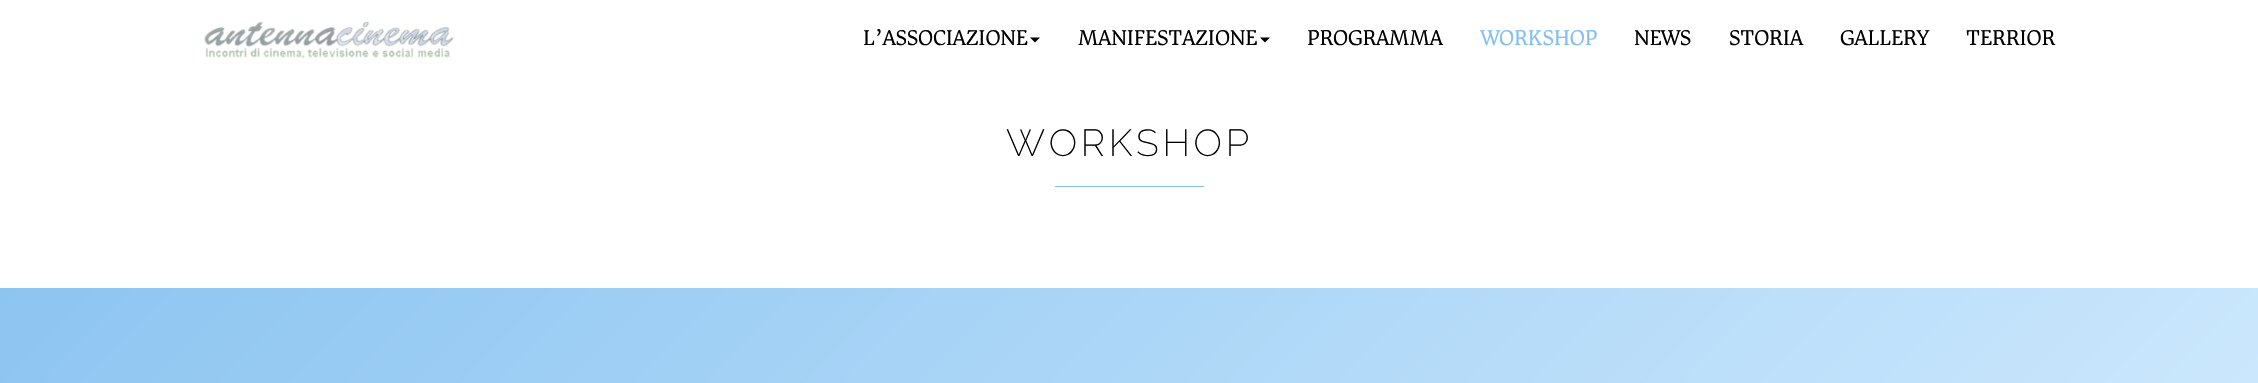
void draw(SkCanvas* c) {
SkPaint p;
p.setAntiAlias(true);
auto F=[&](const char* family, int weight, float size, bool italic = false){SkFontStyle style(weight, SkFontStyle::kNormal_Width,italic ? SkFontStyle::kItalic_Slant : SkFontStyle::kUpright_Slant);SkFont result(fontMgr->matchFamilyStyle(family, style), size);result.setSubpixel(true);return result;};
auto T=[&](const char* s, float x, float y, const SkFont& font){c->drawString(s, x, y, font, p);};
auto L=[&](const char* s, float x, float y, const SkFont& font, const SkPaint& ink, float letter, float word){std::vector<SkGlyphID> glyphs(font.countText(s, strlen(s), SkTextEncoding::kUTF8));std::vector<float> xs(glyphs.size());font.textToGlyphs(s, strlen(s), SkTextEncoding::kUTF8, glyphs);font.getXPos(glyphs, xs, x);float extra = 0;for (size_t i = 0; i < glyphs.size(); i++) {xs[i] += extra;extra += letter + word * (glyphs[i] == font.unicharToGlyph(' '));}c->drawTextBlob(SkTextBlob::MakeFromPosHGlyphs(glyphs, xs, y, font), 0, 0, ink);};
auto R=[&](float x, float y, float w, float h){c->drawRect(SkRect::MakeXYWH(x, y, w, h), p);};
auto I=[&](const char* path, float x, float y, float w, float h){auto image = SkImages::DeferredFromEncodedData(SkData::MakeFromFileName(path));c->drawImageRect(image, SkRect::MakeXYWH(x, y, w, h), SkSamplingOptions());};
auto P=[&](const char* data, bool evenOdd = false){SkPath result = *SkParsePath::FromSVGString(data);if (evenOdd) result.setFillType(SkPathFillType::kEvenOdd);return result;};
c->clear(0xffffffff);
I("1.png",204,21,250,38);
auto f1 = F("Asar",400,22.5);
p.setColor(0xff000000);
T("L’ASSOCIAZIONE",863,45,f1);
c->drawPath(P("M1030 37.5h10l-5 5z"),p);
T("MANIFESTAZIONE",1078,45,f1);
c->drawPath(P("M1260 37.5h10l-5 5z"),p);
T("PROGRAMMA",1307,45,f1);
p.setColor(0xff83c0f1);
T("WORKSHOP",1481,45,f1);
p.setColor(0xff000000);
T("NEWS",1634,45,f1);
T("STORIA",1729,45,f1);
T("GALLERY",1840,45,f1);
T("TERRIOR",1966,45,f1);
auto f2 = F("Raleway",200,37.5);
L("WORKSHOP",1006,156,f2,p,3.75,0);
p.setColor(0xff83c0f1);
R(1055,186,149,1);
{
const SkColor colors[] = {0xff8dc5f1,0xffd2ebfe};
const float stops[] = {0,1};
const SkPoint ends[] = {{470,-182}, {1789,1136}};
p.setShader(SkGradientShader::MakeLinear(ends, colors, stops, 2, SkTileMode::kClamp));
p.setAlpha(255);
}
R(0,288,2258,95);
}
